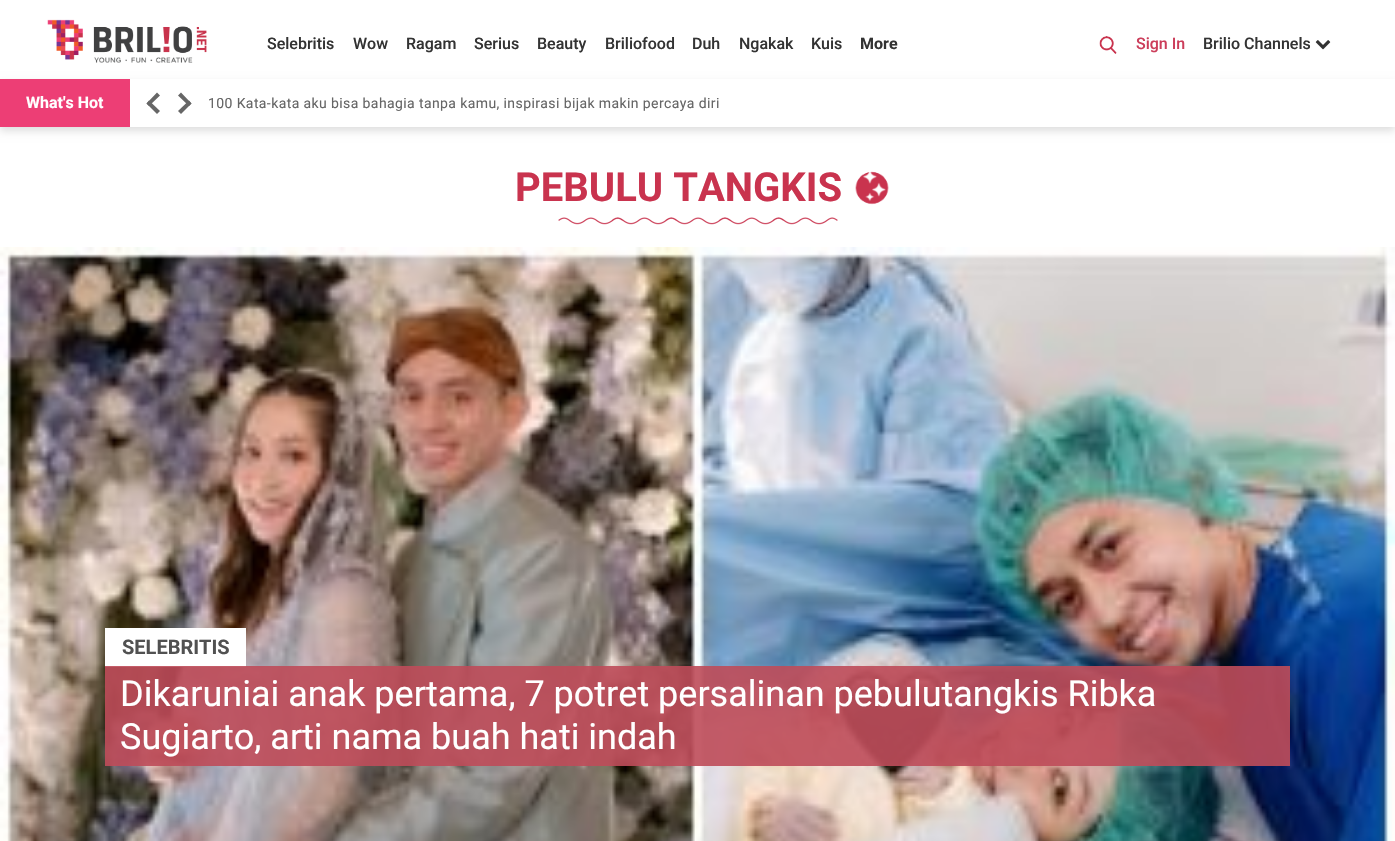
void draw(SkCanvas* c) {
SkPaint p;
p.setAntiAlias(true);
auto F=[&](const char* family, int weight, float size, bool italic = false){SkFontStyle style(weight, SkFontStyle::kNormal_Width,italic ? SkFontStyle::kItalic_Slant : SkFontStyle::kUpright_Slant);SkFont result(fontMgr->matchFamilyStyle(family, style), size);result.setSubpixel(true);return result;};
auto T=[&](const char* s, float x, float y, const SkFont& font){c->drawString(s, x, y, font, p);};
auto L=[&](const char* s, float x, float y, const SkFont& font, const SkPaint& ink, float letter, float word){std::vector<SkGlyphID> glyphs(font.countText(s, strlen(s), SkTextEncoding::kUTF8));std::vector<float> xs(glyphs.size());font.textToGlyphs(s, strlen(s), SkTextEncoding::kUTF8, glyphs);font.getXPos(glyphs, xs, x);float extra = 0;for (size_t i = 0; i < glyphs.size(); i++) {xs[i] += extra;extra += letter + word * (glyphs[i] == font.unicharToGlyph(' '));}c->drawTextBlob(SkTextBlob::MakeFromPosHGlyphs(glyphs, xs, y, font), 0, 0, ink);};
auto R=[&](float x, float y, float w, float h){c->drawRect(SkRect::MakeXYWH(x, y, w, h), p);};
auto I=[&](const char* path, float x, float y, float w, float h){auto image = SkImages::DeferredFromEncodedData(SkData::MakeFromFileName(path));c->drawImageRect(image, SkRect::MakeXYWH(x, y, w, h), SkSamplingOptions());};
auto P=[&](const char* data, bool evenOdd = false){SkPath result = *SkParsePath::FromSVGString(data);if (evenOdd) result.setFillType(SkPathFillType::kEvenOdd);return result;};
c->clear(0xffffffff);
I("1.png",47,19,160,44);
auto f1 = F("Roboto",500,16);
p.setColor(0xff333333);
T("Selebritis",267,49,f1);
T("Wow",353,49,f1);
T("Ragam",406,49,f1);
T("Serius",474,49,f1);
T("Beauty",537,49,f1);
T("Briliofood",605,49,f1);
T("Duh",692,49,f1);
T("Ngakak",739,49,f1);
T("Kuis",811,49,f1);
auto f2 = F("Roboto",700,16);
T("More",860,49,f2);
I("2.png",1099,36,18,18);
p.setColor(0xffcc3e5b);
T("Sign In",1136,49,f1);
p.setColor(0xff333333);
T("Brilio Channels",1203,49,f1);
I("3.png",1315,40,16,10);
c->save();
c->clipPath(P("M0 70h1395v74h-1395zm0 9h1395v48h-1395z",true),true);
p.setColor(0xffdedede);
p.setMaskFilter(SkMaskFilter::MakeBlur(kNormal_SkBlurStyle, 4));
c->drawRect(SkRect::MakeXYWH(0,83,1395,48),p);
p.setMaskFilter(nullptr);
c->restore();
p.setColor(0xffed3e75);
R(0,79,130,48);
p.setColor(0xffffffff);
T("What's Hot",26,108,f2);
p.setColor(0xff666666);
c->drawPath(P("M149 100.5l11 10.5l-3 3l-10.5-10.5z"),p);
c->drawPath(P("M157 92.5l3 3l-11 10.5l-2.5-2.5zm32 13.5l-11-10.5l3-3l10.5 11z"),p);
c->drawPath(P("M181 114l-3-3l11-10.5l2.5 3z"),p);
auto f3 = F("Roboto",400,14);
L("100 Kata-kata aku bisa bahagia tanpa kamu, inspirasi bijak makin percaya diri",208,108,f3,p,.4,0);
auto f4 = F("Roboto",700,40);
p.setColor(0xffc9334e);
T("PEBULU TANGKIS",515,201,f4);
I("4.png",855,171,34,34);
I("5.png",558,217,280,8);
I("6.png",0,247,1395,594);
p.setColor(0xffffffff);
R(105,628,141,39);
auto f5 = F("Roboto",700,20);
p.setColor(0xff515151);
T("SELEBRITIS",122,654,f5);
p.setColor(0xe6be4b59);
R(105,666,1185,100);
auto f6 = F("Roboto",400,36);
p.setColor(0xffffffff);
T("Dikaruniai anak pertama, 7 potret persalinan pebulutangkis Ribka",120,706,f6);
T("Sugiarto, arti nama buah hati indah",120,749,f6);
}
